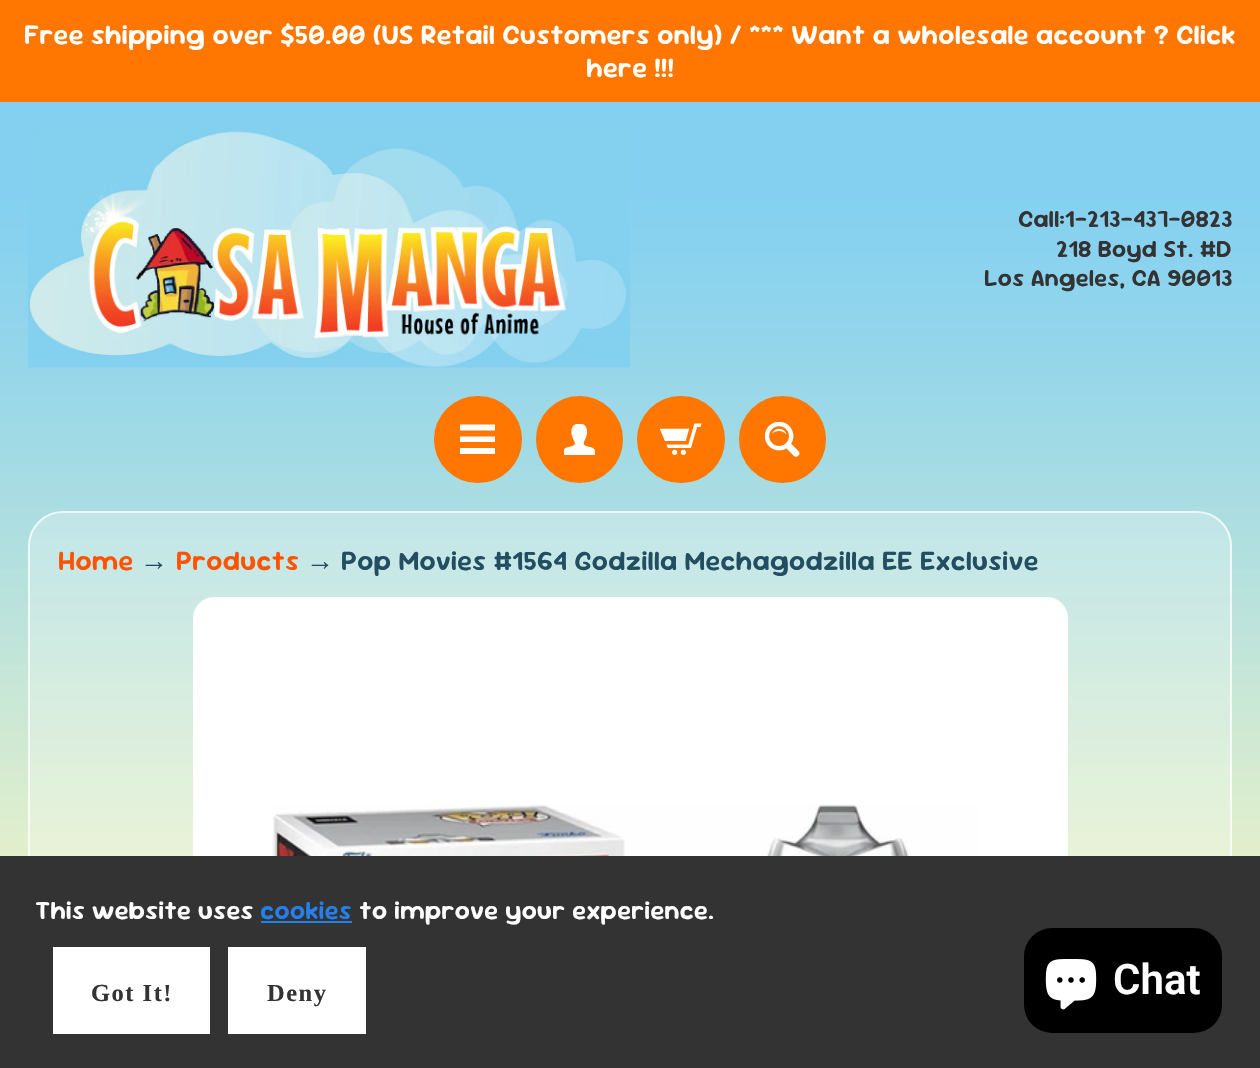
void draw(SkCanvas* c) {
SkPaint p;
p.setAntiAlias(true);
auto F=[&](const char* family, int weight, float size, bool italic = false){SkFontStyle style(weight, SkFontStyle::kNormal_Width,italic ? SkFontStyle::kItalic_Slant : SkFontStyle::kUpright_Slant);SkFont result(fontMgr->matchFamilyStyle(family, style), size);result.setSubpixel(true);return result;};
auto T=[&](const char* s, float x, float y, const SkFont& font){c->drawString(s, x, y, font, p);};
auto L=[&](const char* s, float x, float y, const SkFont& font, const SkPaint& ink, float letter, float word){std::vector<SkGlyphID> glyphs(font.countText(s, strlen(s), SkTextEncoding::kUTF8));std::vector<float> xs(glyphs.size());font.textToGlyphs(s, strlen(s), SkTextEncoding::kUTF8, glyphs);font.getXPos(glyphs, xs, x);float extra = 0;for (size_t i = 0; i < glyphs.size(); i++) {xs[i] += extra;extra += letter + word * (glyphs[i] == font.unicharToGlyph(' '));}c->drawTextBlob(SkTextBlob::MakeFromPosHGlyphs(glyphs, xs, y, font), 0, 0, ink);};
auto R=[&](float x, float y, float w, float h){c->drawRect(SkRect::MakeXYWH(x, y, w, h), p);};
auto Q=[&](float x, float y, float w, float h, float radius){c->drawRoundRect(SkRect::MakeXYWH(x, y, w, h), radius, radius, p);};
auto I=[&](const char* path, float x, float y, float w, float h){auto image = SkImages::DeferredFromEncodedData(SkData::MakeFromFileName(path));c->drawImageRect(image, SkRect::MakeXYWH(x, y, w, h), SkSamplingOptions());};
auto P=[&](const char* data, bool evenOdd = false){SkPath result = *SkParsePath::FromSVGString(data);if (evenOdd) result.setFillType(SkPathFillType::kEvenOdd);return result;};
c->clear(0xfffff9c1);
I("1.png",0,102,1260,754);
p.setColor(0xffff7700);
R(0,0,1260,102);
auto f1 = F("Sour Gummy",600,28);
p.setColor(0xffffffff);
T("Free shipping over $50.00 (US Retail Customers only) / *** Want a wholesale account ? Click",24,44,f1);
T("here !!!",586,77,f1);
I("2.png",28,130,602,238);
auto f2 = F("Sour Gummy",600,24.5);
p.setColor(0xff333333);
T("Call:1-213-437-0823",1018,227,f2);
T("218 Boyd St. #D",1056,257,f2);
T("Los Angeles, CA 90013",984,286,f2);
p.setColor(0xffff7700);
c->drawRoundRect(SkRect::MakeXYWH(436.5,398.5,83,82),41,41,p);
p.setStroke(true);
p.setStrokeWidth(5);
c->drawRoundRect(SkRect::MakeXYWH(436.5,398.5,83,82),41,41,p);
p.setStroke(false);
p.setColor(0xffffffff);
c->drawPath(P("M495 430.5h-35v-6h35zm0 6h-35v5.5h35zm0 11.5h-35v6h35z"),p);
p.setColor(0xffff7700);
c->drawCircle(579.5,439.5,41,p);
p.setStroke(true);
c->drawCircle(579.5,439.5,41,p);
I("3.png",564,424,31,31);
p.setStroke(false);
c->drawRoundRect(SkRect::MakeXYWH(639.5,398.5,83,82),41,41,p);
p.setStroke(true);
c->drawRoundRect(SkRect::MakeXYWH(639.5,398.5,83,82),41,41,p);
I("4.png",660,423,42,32);
p.setStroke(false);
c->drawCircle(782.5,439.5,41,p);
p.setStroke(true);
c->drawCircle(782.5,439.5,41,p);
I("5.png",765,422,35,35);
p.setStroke(false);
p.setColor(0x40ffffff);
Q(28,511,1204,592,35);
p.setStroke(true);
p.setStrokeWidth(2);
p.setColor(0xb3ffffff);
c->drawRoundRect(SkRect::MakeXYWH(29,512,1202,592),34,34,p);
p.setStroke(false);
p.setColor(0xffff5300);
T("Home",58,570,f1);
auto f3 = F("Liberation Sans",700,28);
p.setColor(0xff234d61);
T("→",140,570,f3);
p.setColor(0xffff5300);
T("Products",176,570,f1);
p.setColor(0xff234d61);
T("→",306,570,f3);
T("Pop Movies #1564 Godzilla Mechagodzilla EE Exclusive",341,570,f1);
p.setColor(0xffffffff);
Q(193,597,875,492,21);
I("6.png",272,804,707,52);
p.setColor(0xff333333);
R(0,856,1260,212);
auto f4 = F("Sour Gummy",600,26.25);
p.setColor(0xffffffff);
T("This website uses",35,919,f4);
p.setColor(0xff2680eb);
T("cookies",260,919,f4);
R(261,921,91,2);
p.setColor(0xffffffff);
T("to improve your experience.",359,919,f4);
R(53,947,157,87);
auto f5 = F("Liberation Serif",700,24.5);
p.setColor(0xff333333);
L("Got It!",91,1001,f5,p,1.5,0);
p.setColor(0xffffffff);
R(228,947,138,87);
p.setColor(0xff333333);
L("Deny",267,1001,f5,p,1.5,0);
p.setColor(0xff000000);
Q(1024,928,198,105,28);
I("7.png",1045,959,52,51);
auto f6 = F("Roboto",600,42);
p.setColor(0xffffffff);
T("Chat",1113,994,f6);
}
